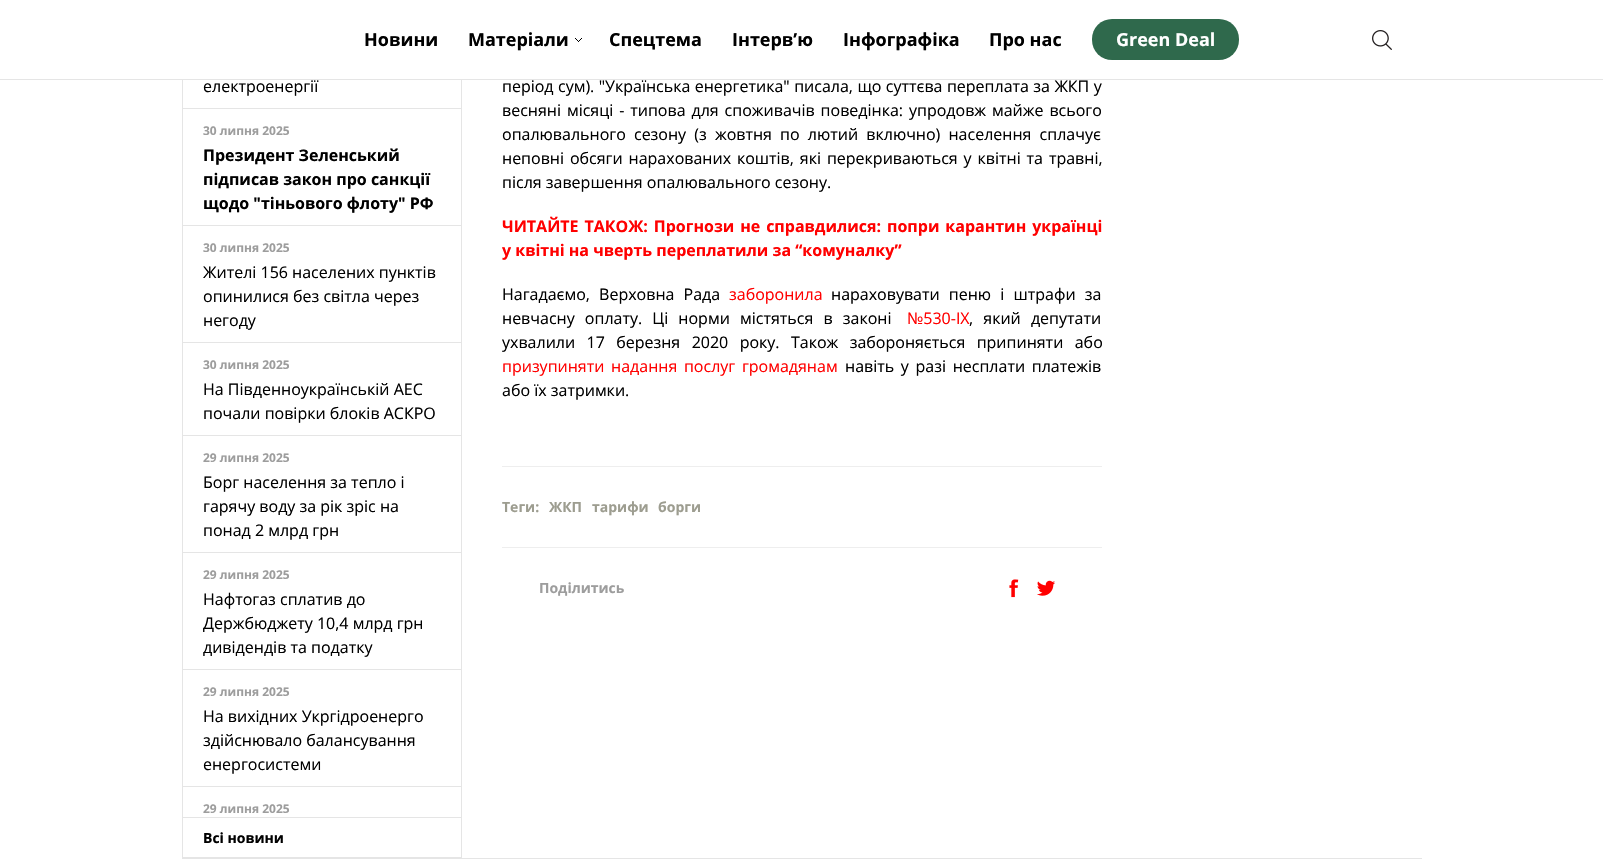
void draw(SkCanvas* c) {
SkPaint p;
p.setAntiAlias(true);
auto F=[&](const char* family, int weight, float size, bool italic = false){SkFontStyle style(weight, SkFontStyle::kNormal_Width,italic ? SkFontStyle::kItalic_Slant : SkFontStyle::kUpright_Slant);SkFont result(fontMgr->matchFamilyStyle(family, style), size);result.setSubpixel(true);return result;};
auto T=[&](const char* s, float x, float y, const SkFont& font){c->drawString(s, x, y, font, p);};
auto L=[&](const char* s, float x, float y, const SkFont& font, const SkPaint& ink, float letter, float word){std::vector<SkGlyphID> glyphs(font.countText(s, strlen(s), SkTextEncoding::kUTF8));std::vector<float> xs(glyphs.size());font.textToGlyphs(s, strlen(s), SkTextEncoding::kUTF8, glyphs);font.getXPos(glyphs, xs, x);float extra = 0;for (size_t i = 0; i < glyphs.size(); i++) {xs[i] += extra;extra += letter + word * (glyphs[i] == font.unicharToGlyph(' '));}c->drawTextBlob(SkTextBlob::MakeFromPosHGlyphs(glyphs, xs, y, font), 0, 0, ink);};
auto R=[&](float x, float y, float w, float h){c->drawRect(SkRect::MakeXYWH(x, y, w, h), p);};
auto Q=[&](float x, float y, float w, float h, float radius){c->drawRoundRect(SkRect::MakeXYWH(x, y, w, h), radius, radius, p);};
auto I=[&](const char* path, float x, float y, float w, float h){auto image = SkImages::DeferredFromEncodedData(SkData::MakeFromFileName(path));c->drawImageRect(image, SkRect::MakeXYWH(x, y, w, h), SkSamplingOptions());};
c->clear(0xffffffff);
p.setStroke(true);
p.setStrokeWidth(1);
p.setColor(0xffe5e5e5);
c->drawRect(SkRect::MakeXYWH(182.5,-.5,279,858),p);
p.setStroke(false);
p.setColor(0xffffffff);
R(182,0,280,79);
p.setColor(0xffe5e5e5);
R(0,79,1603,1);
auto f1 = F("Open Sans",700,18);
p.setColor(0xff000000);
T("Новини",364,46,f1);
T("Матеріали",468,46,f1);
I("1.png",575,38,7,4);
T("Спецтема",609,46,f1);
T("Iнтерв’ю",732,46,f1);
T("Інфографіка",843,46,f1);
T("Про нас",989,46,f1);
p.setColor(0xff2f694c);
Q(1092,19,147,41,20);
p.setColor(0xffffffff);
T("Green Deal",1116,46,f1);
I("2.png",1372,30,20,20);
p.setColor(0xffe5e5e5);
R(183,108,278,1);
auto f2 = F("Open Sans",400,16);
p.setColor(0xff000000);
T("електроенергії",203,92,f2);
p.setColor(0xffe5e5e5);
R(183,225,278,1);
auto f3 = F("Open Sans",700,12);
p.setColor(0xff9d9d9d);
T("30 липня 2025",203,135,f3);
auto f4 = F("Open Sans",700,16);
p.setColor(0xff000000);
T("Президент Зеленський",203,161,f4);
T("підписав закон про санкції",203,185,f4);
T("щодо \"тіньового флоту\" РФ",203,209,f4);
p.setColor(0xffe5e5e5);
R(183,342,278,1);
p.setColor(0xff9d9d9d);
T("30 липня 2025",203,252,f3);
p.setColor(0xff000000);
T("Жителі 156 населених пунктів",203,278,f2);
T("опинилися без світла через",203,302,f2);
T("негоду",203,326,f2);
p.setColor(0xffe5e5e5);
R(183,435,278,1);
p.setColor(0xff9d9d9d);
T("30 липня 2025",203,369,f3);
p.setColor(0xff000000);
T("На Південноукраїнській АЕС",203,395,f2);
T("почали повірки блоків АСКРО",203,419,f2);
p.setColor(0xffe5e5e5);
R(183,552,278,1);
p.setColor(0xff9d9d9d);
T("29 липня 2025",203,462,f3);
p.setColor(0xff000000);
T("Борг населення за тепло і",203,488,f2);
T("гарячу воду за рік зріс на",203,512,f2);
T("понад 2 млрд грн",203,536,f2);
p.setColor(0xffe5e5e5);
R(183,669,278,1);
p.setColor(0xff9d9d9d);
T("29 липня 2025",203,579,f3);
p.setColor(0xff000000);
T("Нафтогаз сплатив до",203,605,f2);
T("Держбюджету 10,4 млрд грн",203,629,f2);
T("дивідендів та податку",203,653,f2);
p.setColor(0xffe5e5e5);
R(183,786,278,1);
p.setColor(0xff9d9d9d);
T("29 липня 2025",203,696,f3);
p.setColor(0xff000000);
T("На вихідних Укргідроенерго",203,722,f2);
T("здійснювало балансування",203,746,f2);
T("енергосистеми",203,770,f2);
p.setColor(0xff9d9d9d);
T("29 липня 2025",203,813,f3);
p.setColor(0xffe5e5e5);
R(183,817,278,1);
auto f5 = F("Open Sans",700,14);
p.setColor(0xff000000);
T("Всі новини",203,843,f5);
L("період сум). \"Українська енергетика\" писала, що суттєва переплата за ЖКП у",502,92,f2,p,0,.25);
L("весняні місяці - типова для споживачів поведінка: упродовж майже всього",502,116,f2,p,0,1.75);
L("опалювального сезону (з жовтня по лютий включно) населення сплачує",502,140,f2,p,0,4);
L("неповні обсяги нарахованих коштів, які перекриваються у квітні та травні,",502,164,f2,p,0,1.75);
T("після завершення опалювального сезону.",502,188,f2);
p.setColor(0xffff0000);
L("ЧИТАЙТЕ ТАКОЖ: Прогнози не справдилися: попри карантин українці",502,232,f4,p,0,1.75);
T("у квітні на чверть переплатили за “комуналку”",502,256,f4);
p.setColor(0xff000000);
L("Нагадаємо, Верховна Рада",502,300,f2,p,0,5);
p.setColor(0xffff0000);
T("заборонила",729,300,f2);
p.setColor(0xff000000);
L("нараховувати пеню і штрафи за",831,300,f2,p,0,5);
L("невчасну оплату. Ці норми містяться в законі",502,324,f2,p,0,6);
p.setColor(0xffff0000);
T("№530-IX",907,324,f2);
p.setColor(0xff000000);
L(", який депутати",969,324,f2,p,0,6);
L("ухвалили 17 березня 2020 року. Також забороняється припиняти або",502,348,f2,p,0,7.25);
p.setColor(0xffff0000);
L("призупиняти надання послуг громадянам",502,372,f2,p,0,2.5);
p.setColor(0xff000000);
L("навіть у разі несплати платежів",845,372,f2,p,0,2.5);
T("або їх затримки.",502,396,f2);
p.setColor(0xffeeeeee);
R(502,466,600,1);
p.setColor(0xff9d9d90);
T("Теги:",502,512,f5);
T("ЖКП",549,512,f5);
T("тарифи",592,512,f5);
T("борги",658,512,f5);
p.setColor(0xffeeeeee);
R(502,547,600,1);
p.setColor(0xff9d9d9d);
T("Поділитись",539,593,f5);
I("3.png",1009,579,10,19);
I("4.png",1037,580,18,16);
p.setColor(0xffe5e5e5);
R(182,858,1240,1);
}
